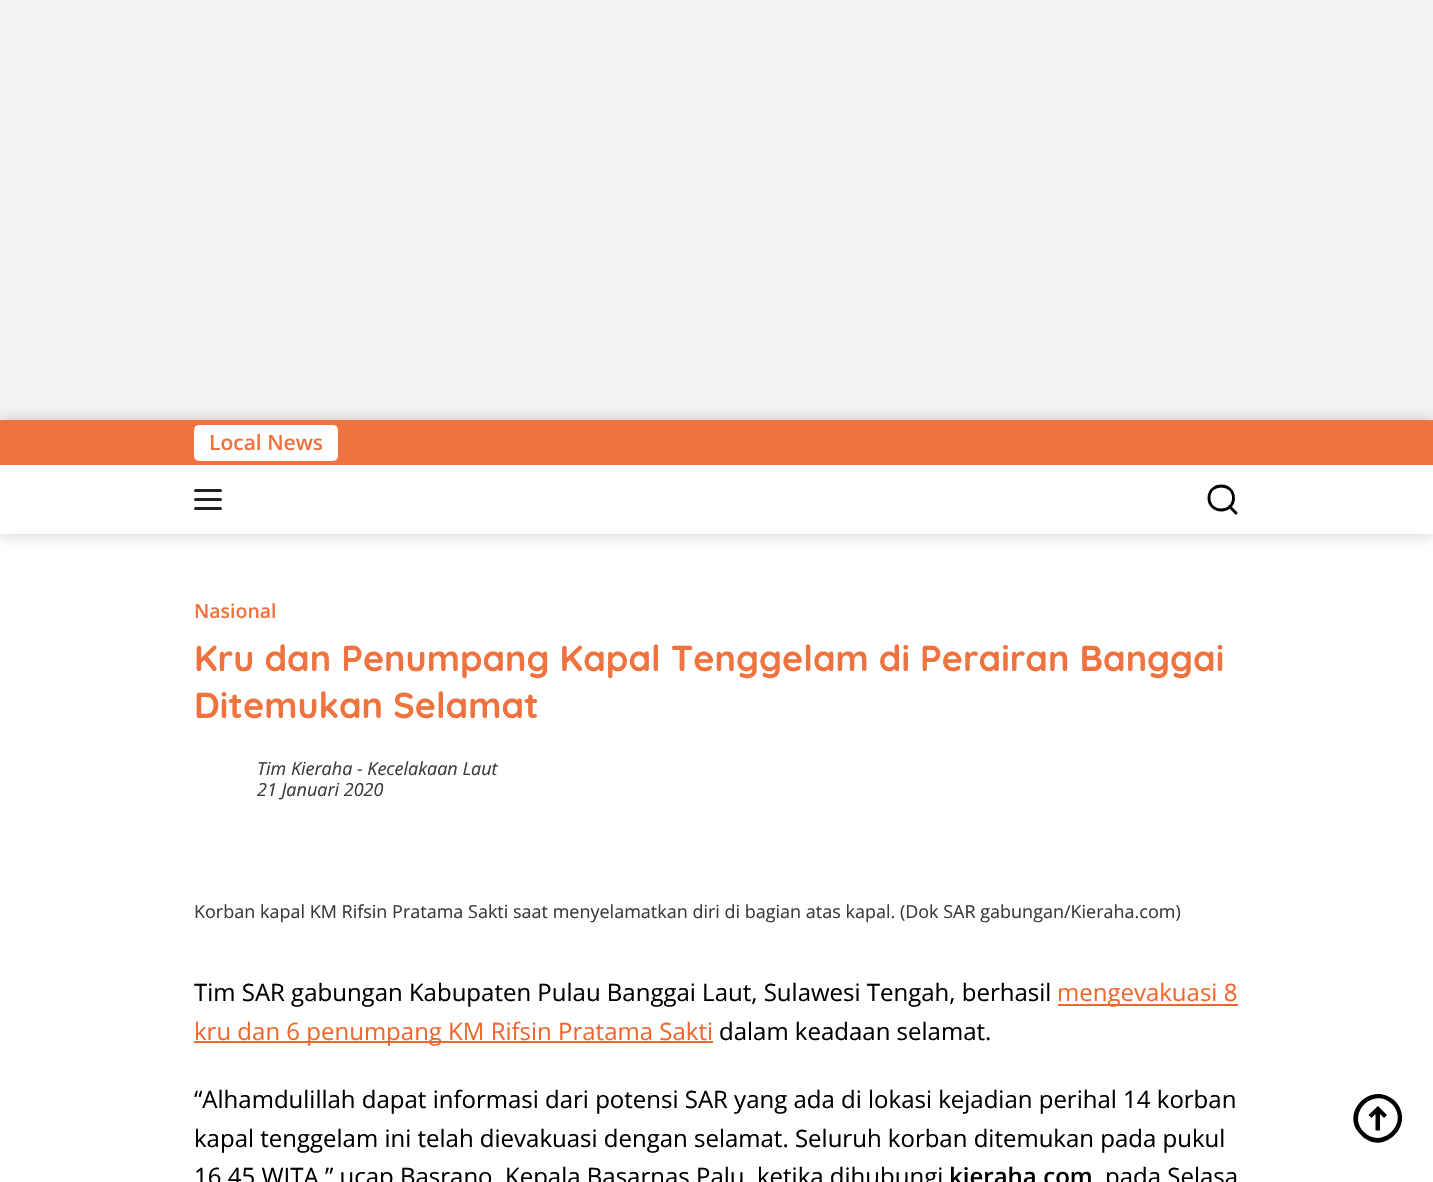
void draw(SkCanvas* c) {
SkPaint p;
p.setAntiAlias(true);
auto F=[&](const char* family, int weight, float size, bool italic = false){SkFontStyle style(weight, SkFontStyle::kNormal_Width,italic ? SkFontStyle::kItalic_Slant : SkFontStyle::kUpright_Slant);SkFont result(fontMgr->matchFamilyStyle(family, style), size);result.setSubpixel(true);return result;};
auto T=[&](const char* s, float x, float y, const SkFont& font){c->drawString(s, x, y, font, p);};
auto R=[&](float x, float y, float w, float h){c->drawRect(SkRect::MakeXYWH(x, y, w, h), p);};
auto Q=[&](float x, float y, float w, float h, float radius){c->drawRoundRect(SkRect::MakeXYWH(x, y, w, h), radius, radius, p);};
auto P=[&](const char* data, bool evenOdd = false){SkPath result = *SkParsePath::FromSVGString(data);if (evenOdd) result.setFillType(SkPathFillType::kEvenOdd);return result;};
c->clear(0xfff4f4f4);
p.setColor(0xffffffff);
R(0,534,1433,648);
p.setColor(0x33000000);
p.setMaskFilter(SkMaskFilter::MakeBlur(kNormal_SkBlurStyle, 7.5));
c->drawRect(SkRect::MakeXYWH(0,420,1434,114),p);
p.setMaskFilter(nullptr);
p.setColor(0xffffffff);
R(0,465,1433,69);
p.setColor(0xffef733e);
R(0,420,1433,45);
p.setColor(0xffffffff);
Q(194,425,144,36,5);
auto f1 = F("Open Sans",600,21);
p.setColor(0xffef733e);
T("Local News",209,450,f1);
p.setColor(0xff222222);
Q(194,489,28,3,1.5);
Q(194,498,28,3,1.5);
Q(194,507,28,3,1.5);
p.setStroke(true);
p.setStrokeWidth(2.9);
p.setStrokeCap(SkPaint::kRound_Cap);
p.setColor(0xff000000);
c->drawPath(P("M1236 513l-6.5-6.5m4-8.5c0 16-24.5 16-24.5 0c0-16 24.5-16 24.5 0z"),p);
auto f2 = F("Open Sans",600,19.5);
p.setStroke(false);
p.setColor(0xffef733e);
T("Nasional",194,618,f2);
auto f3 = F("Quicksand",700,36);
T("Kru dan Penumpang Kapal Tenggelam di Perairan Banggai",194,671,f3);
T("Ditemukan Selamat",194,718,f3);
auto f4 = F("Open Sans",400,18,true);
p.setColor(0xff3a3a3a);
T("Tim Kieraha - Kecelakaan Laut",257,775,f4);
T("21 Januari 2020",257,796,f4);
auto f5 = F("Open Sans",400,18);
T("Korban kapal KM Rifsin Pratama Sakti saat menyelamatkan diri di bagian atas kapal. (Dok SAR gabungan/Kieraha.com)",194,918,f5);
auto f6 = F("Open Sans",400,24);
p.setColor(0xff000000);
T("Tim SAR gabungan Kabupaten Pulau Banggai Laut, Sulawesi Tengah, berhasil",194,1001,f6);
p.setColor(0xffef672f);
R(1058,1004,180,2);
T("mengevakuasi 8",1057,1001,f6);
R(194,1041,519,2);
T("kru dan 6 penumpang KM Rifsin Pratama Sakti",194,1040,f6);
p.setColor(0xff000000);
T("dalam keadaan selamat.",719,1040,f6);
T("“Alhamdulillah dapat informasi dari potensi SAR yang ada di lokasi kejadian perihal 14 korban",194,1108,f6);
T("kapal tenggelam ini telah dievakuasi dengan selamat. Seluruh korban ditemukan pada pukul",194,1147,f6);
T("16.45 WITA,” ucap Basrano, Kepala Basarnas Palu, ketika dihubungi",194,1185,f6);
auto f7 = F("Open Sans",600,24);
T("kieraha.com",949,1185,f7);
T("pada Selasa",1105,1185,f6);
c->drawPath(P("M1384 1118l3-3l-9-9l-9.5 9l3 3l4-4v16.5h4.5v-16.5z"),p);
c->drawPath(P("M1395 1101c-23-22-57 12-34 34c22 23 56-11 34-34zm-3 3c-19-18-46 10-28 28c18 18 46-9 28-28z",true),p);
}
